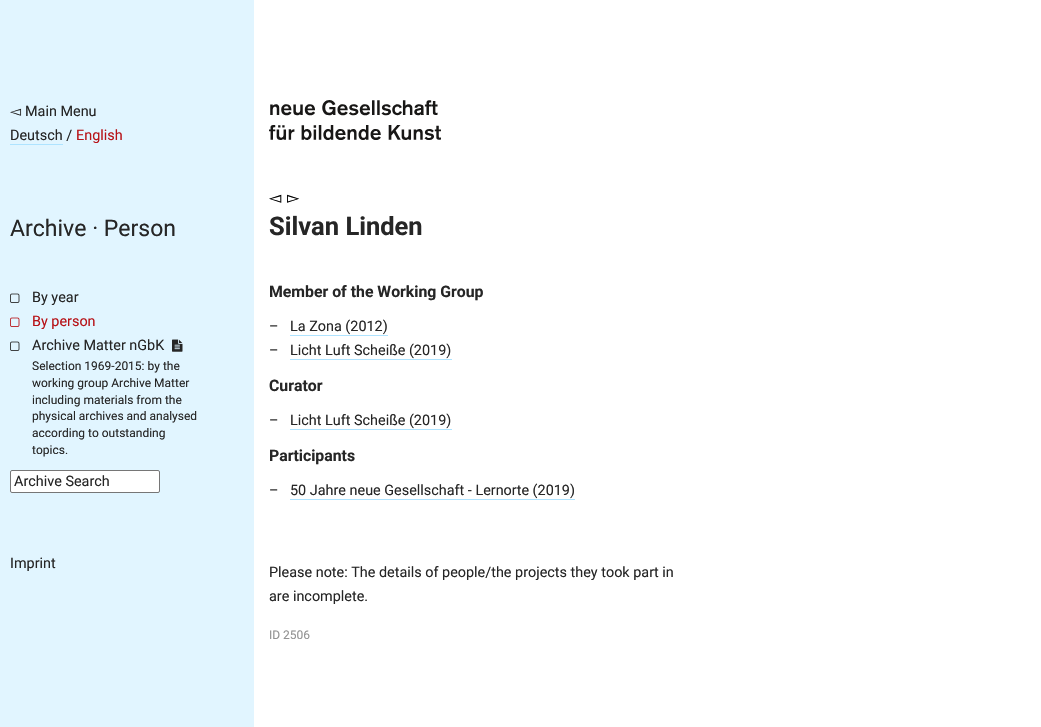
void draw(SkCanvas* c) {
SkPaint p;
p.setAntiAlias(true);
auto F=[&](const char* family, int weight, float size, bool italic = false){SkFontStyle style(weight, SkFontStyle::kNormal_Width,italic ? SkFontStyle::kItalic_Slant : SkFontStyle::kUpright_Slant);SkFont result(fontMgr->matchFamilyStyle(family, style), size);result.setSubpixel(true);return result;};
auto T=[&](const char* s, float x, float y, const SkFont& font){c->drawString(s, x, y, font, p);};
auto R=[&](float x, float y, float w, float h){c->drawRect(SkRect::MakeXYWH(x, y, w, h), p);};
auto I=[&](const char* path, float x, float y, float w, float h){auto image = SkImages::DeferredFromEncodedData(SkData::MakeFromFileName(path));c->drawImageRect(image, SkRect::MakeXYWH(x, y, w, h), SkSamplingOptions());};
c->clear(0xffffffff);
p.setColor(0xffe1f5ff);
R(0,0,254,727);
auto f1 = F("DejaVu Sans",400,14.4);
p.setColor(0xff262626);
T("◅",10,116,f1);
auto f2 = F("Roboto",400,14.4);
T("Main Menu",25,116,f2);
T("Deutsch /",10,140,f2);
p.setColor(0xffaee3ff);
R(10,144,53,1);
p.setColor(0xffb71318);
T("English",76,140,f2);
auto f3 = F("Roboto",400,23);
p.setColor(0xff262626);
T("Archive · Person",10,236,f3);
I("1.png",10,293,10,10);
T("By year",32,302,f2);
I("2.png",10,317,10,10);
p.setColor(0xffb71318);
T("By person",32,326,f2);
I("1.png",10,341,10,10);
p.setColor(0xff262626);
T("Archive Matter nGbK",32,350,f2);
I("3.png",172,339,11,13);
auto f4 = F("Roboto",400,12);
T("Selection 1969-2015: by the",32,370,f4);
T("working group Archive Matter",32,387,f4);
T("including materials from the",32,404,f4);
T("physical archives and analysed",32,420,f4);
T("according to outstanding",32,437,f4);
T("topics.",32,454,f4);
p.setColor(0xffffffff);
c->drawRoundRect(SkRect::MakeXYWH(10.5,470.5,149,22),1.5,1.5,p);
p.setStroke(true);
p.setStrokeWidth(1);
p.setColor(0xff767676);
c->drawRoundRect(SkRect::MakeXYWH(10.5,470.5,149,22),1.5,1.5,p);
p.setStroke(false);
p.setColor(0xff262626);
T("Archive Search",14,486,f2);
T("Imprint",10,568,f2);
I("4.png",269,100,172,40);
auto f5 = F("DejaVu Sans",400,16);
p.setColor(0xff000000);
T("◅",269,203,f5);
T("▻",287,203,f5);
auto f6 = F("Roboto",700,25.5);
p.setColor(0xff262626);
T("Silvan Linden",269,235,f6);
auto f7 = F("Roboto",700,15.8);
T("Member of the Working Group",269,297,f7);
T("–",269,331,f2);
T("La Zona (2012)",290,331,f2);
p.setColor(0xffaee3ff);
R(290,335,98,1);
p.setColor(0xff262626);
T("–",269,355,f2);
T("Licht Luft Scheiße (2019)",290,355,f2);
p.setColor(0xffaee3ff);
R(290,359,162,1);
p.setColor(0xff262626);
T("Curator",269,391,f7);
T("–",269,425,f2);
T("Licht Luft Scheiße (2019)",290,425,f2);
p.setColor(0xffaee3ff);
R(290,429,162,1);
p.setColor(0xff262626);
T("Participants",269,461,f7);
T("–",269,495,f2);
T("50 Jahre neue Gesellschaft - Lernorte (2019)",290,495,f2);
p.setColor(0xffaee3ff);
R(290,499,285,1);
p.setColor(0xff262626);
T("Please note: The details of people/the projects they took part in",269,577,f2);
T("are incomplete.",269,601,f2);
p.setColor(0xff939393);
T("ID 2506",269,639,f4);
}
